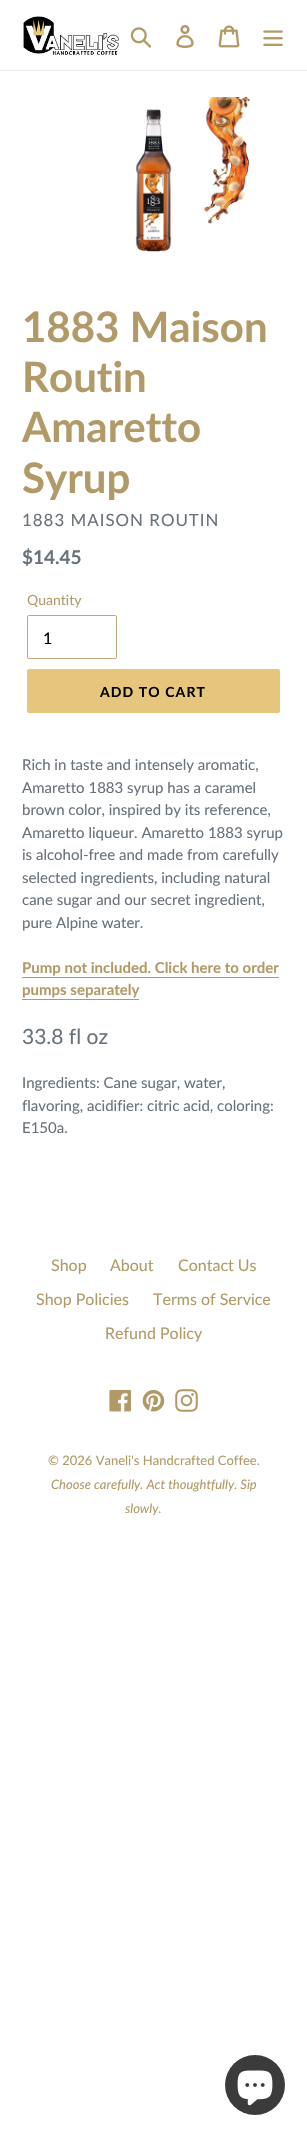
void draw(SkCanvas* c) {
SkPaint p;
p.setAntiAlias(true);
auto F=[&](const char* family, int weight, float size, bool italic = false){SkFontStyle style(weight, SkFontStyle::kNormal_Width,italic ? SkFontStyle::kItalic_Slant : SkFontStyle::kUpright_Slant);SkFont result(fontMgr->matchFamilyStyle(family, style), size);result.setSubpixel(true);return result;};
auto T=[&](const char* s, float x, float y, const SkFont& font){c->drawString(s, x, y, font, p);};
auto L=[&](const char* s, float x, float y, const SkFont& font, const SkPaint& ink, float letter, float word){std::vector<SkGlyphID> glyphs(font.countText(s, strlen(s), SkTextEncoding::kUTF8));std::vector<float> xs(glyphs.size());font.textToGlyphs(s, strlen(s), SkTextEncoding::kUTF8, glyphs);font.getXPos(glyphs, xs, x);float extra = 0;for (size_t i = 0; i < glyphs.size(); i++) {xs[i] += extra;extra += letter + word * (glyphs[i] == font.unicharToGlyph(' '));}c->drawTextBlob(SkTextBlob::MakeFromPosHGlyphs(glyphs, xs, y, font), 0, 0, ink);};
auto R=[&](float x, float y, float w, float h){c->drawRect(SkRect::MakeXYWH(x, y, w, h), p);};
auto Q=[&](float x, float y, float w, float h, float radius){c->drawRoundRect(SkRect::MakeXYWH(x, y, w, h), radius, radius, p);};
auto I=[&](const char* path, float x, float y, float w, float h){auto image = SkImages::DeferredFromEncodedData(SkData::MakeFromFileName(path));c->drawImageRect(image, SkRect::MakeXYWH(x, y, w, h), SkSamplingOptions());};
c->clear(0xffffffff);
p.setColor(0xffe8e9eb);
R(0,70,307,1);
I("1.png",23,16,96,39);
I("2.png",130,27,22,21);
I("3.png",176,25,18,23);
I("4.png",218,25,22,23);
I("5.png",263,30,20,16);
I("6.png",135,97,118,155);
auto f1 = F("Lato",700,42);
p.setColor(0xffb29a68);
T("1883 Maison",22,342,f1);
T("Routin",22,392,f1);
T("Amaretto",22,442,f1);
T("Syrup",22,493,f1);
auto f2 = F("Lato",400,16.9);
p.setColor(0xff69727b);
L("1883 MAISON ROUTIN",22,526,f2,p,1,0);
auto f3 = F("Lato",700,19);
T("$14.45",22,564,f3);
auto f4 = F("Lato",400,14);
p.setColor(0xffb29a68);
T("Quantity",27,605,f4);
p.setStroke(true);
p.setStrokeWidth(1);
p.setColor(0xffbea97f);
c->drawRoundRect(SkRect::MakeXYWH(27.5,615.5,89,43),1.5,1.5,p);
auto f5 = F("Lato",400,16);
p.setStroke(false);
p.setColor(0xff000000);
T("1",43,644,f5);
p.setColor(0xffe6c67d);
Q(27,669,253,44,2);
auto f6 = F("Lato",700,14);
p.setColor(0xff000000);
L("ADD TO CART",100,697,f6,p,1.1,0);
auto f7 = F("Lato",400,15);
p.setColor(0xff69727b);
T("Rich in taste and intensely aromatic,",22,770,f7);
T("Amaretto 1883 syrup has a caramel",22,793,f7);
T("brown color, inspired by its reference,",22,815,f7);
T("Amaretto liqueur. Amaretto 1883 syrup",22,838,f7);
T("is alcohol-free and made from carefully",22,860,f7);
T("selected ingredients, including natural",22,883,f7);
T("cane sugar and our secret ingredient,",22,905,f7);
T("pure Alpine water.",22,928,f7);
auto f8 = F("Lato",700,15);
p.setColor(0xffb29a68);
T("Pump not included. Click here to order",22,973,f8);
R(22,977,257,1);
T("pumps separately",22,995,f8);
R(22,999,117,1);
auto f9 = F("Lato",400,21);
p.setColor(0xff69727b);
T("33.8 fl oz",22,1044,f9);
T("Ingredients: Cane sugar, water,",22,1088,f7);
T("flavoring, acidifier: citric acid, coloring:",22,1111,f7);
T("E150a.",22,1133,f7);
p.setColor(0xffb29a68);
T("Shop",51,1271,f5);
T("About",110,1271,f5);
T("Contact Us",178,1271,f5);
T("Shop Policies",36,1305,f5);
T("Terms of Service",153,1305,f5);
T("Refund Policy",105,1339,f5);
I("7.png",109,1389,22,23);
I("8.png",142,1389,23,23);
I("9.png",175,1389,23,23);
auto f10 = F("Lato",400,13);
T("© 2026 Vaneli's Handcrafted Coffee.",48,1465,f10);
auto f11 = F("Lato",400,13,true);
T("Choose carefully. Act thoughtfully. Sip",51,1489,f11);
T("slowly.",125,1513,f11);
p.setColor(0xff3b3b3b);
c->drawCircle(255,2085,30,p);
I("10.png",237,2070,36,36);
}
